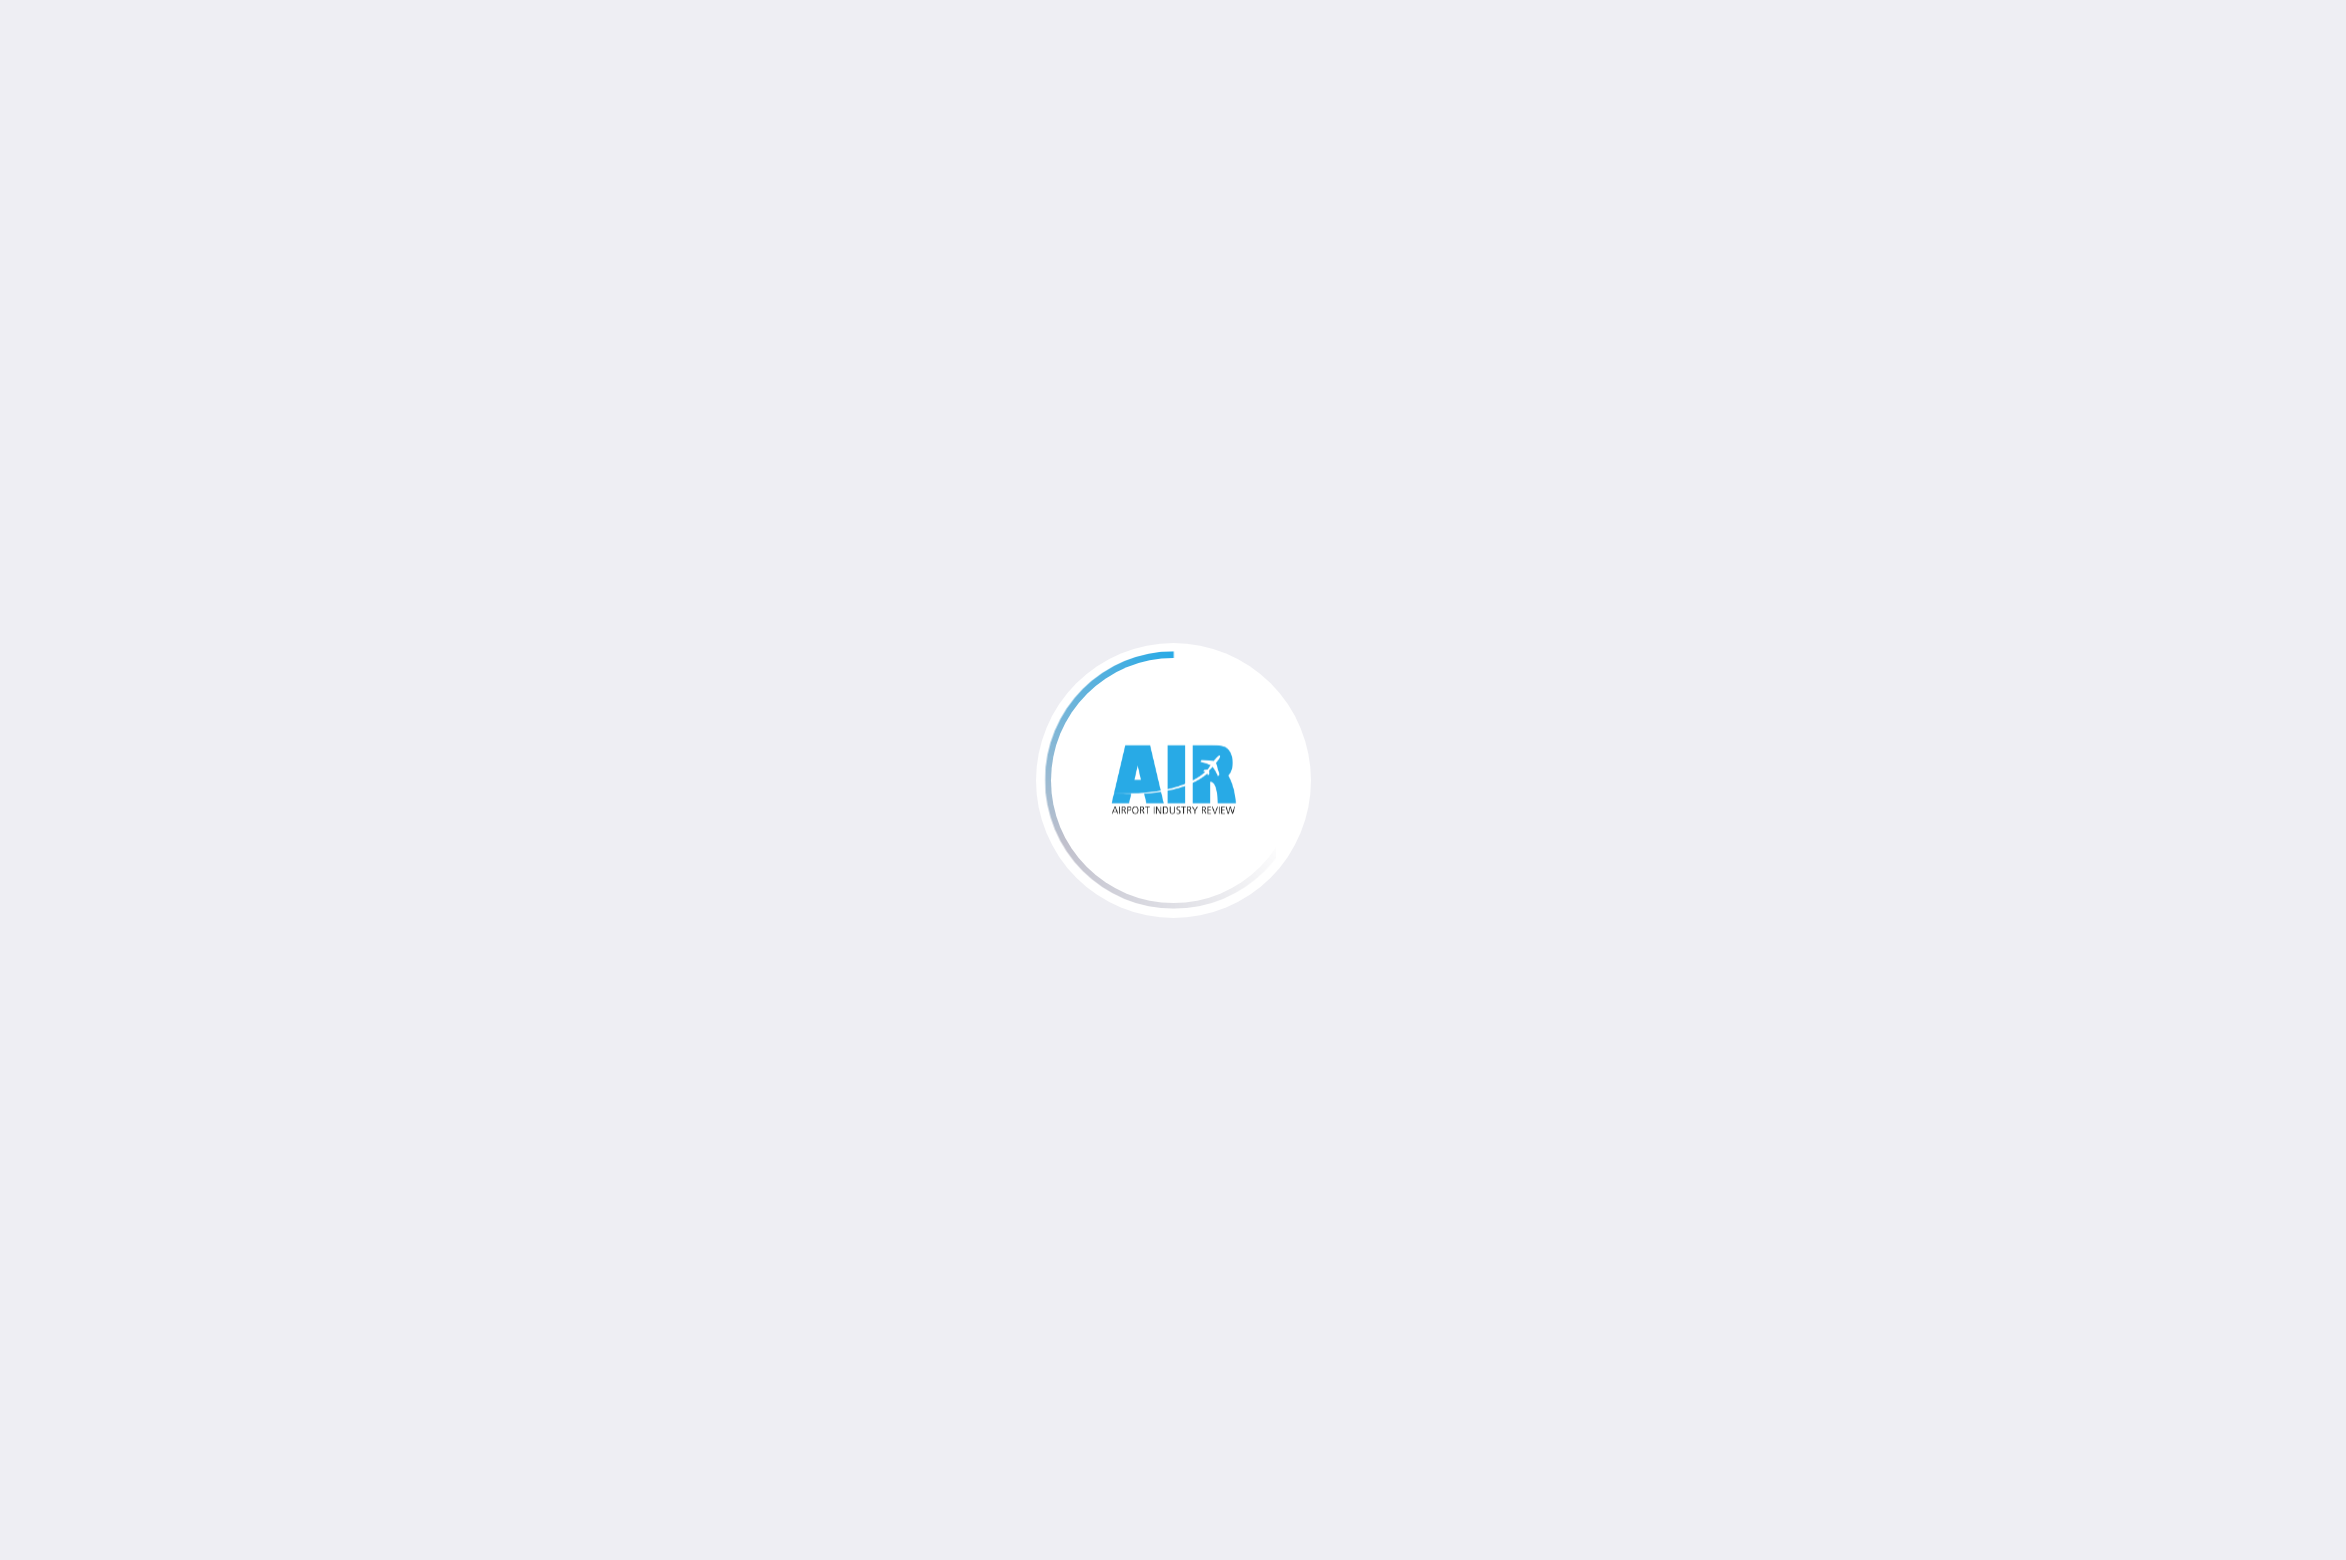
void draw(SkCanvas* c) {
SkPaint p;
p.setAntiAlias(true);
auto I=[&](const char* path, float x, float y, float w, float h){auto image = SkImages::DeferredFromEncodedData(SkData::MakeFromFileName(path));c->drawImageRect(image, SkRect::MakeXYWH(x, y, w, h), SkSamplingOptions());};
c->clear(0xffeeeef3);
p.setColor(0xffffffff);
c->drawCircle(1173.5,780.5,137.5,p);
I("1.png",1044,651,232,258);
c->drawCircle(1173.5,780.5,122.5,p);
I("2.png",1111,744,126,71);
}
